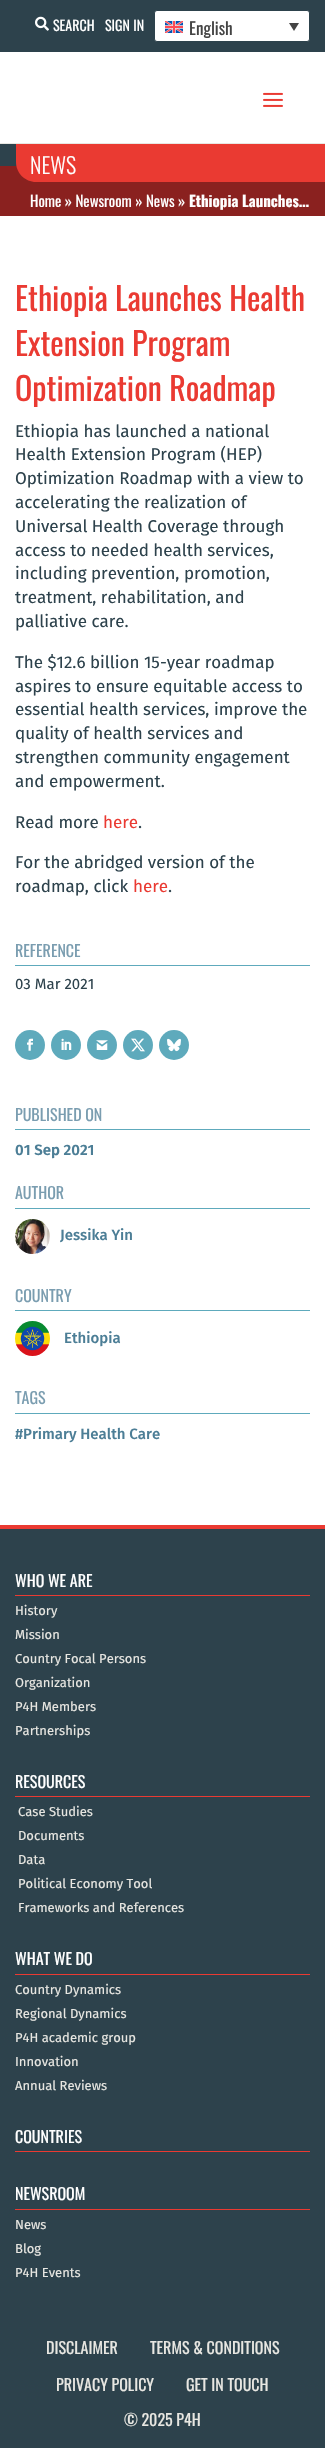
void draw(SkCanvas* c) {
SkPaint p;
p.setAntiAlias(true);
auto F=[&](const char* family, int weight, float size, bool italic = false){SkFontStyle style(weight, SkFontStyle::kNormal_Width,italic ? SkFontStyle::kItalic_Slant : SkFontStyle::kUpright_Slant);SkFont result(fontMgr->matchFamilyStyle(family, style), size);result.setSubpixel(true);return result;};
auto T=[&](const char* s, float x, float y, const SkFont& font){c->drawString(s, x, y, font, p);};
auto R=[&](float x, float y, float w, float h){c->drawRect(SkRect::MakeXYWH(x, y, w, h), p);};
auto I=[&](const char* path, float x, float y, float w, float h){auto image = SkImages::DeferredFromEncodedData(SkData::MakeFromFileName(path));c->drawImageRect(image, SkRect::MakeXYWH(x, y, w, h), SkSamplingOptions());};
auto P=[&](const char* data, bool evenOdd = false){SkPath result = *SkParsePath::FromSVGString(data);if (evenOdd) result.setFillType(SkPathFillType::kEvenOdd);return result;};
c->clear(0xffffffff);
p.setColor(0xff2d424c);
R(0,0,325,52);
I("1.png",35,16,14,15);
auto f1 = F("Oswald",400,14);
p.setColor(0xffffffff);
T("SEARCH",53,31,f1);
T("SIGN IN",105,31,f1);
c->drawRoundRect(SkRect::MakeXYWH(154.5,10.5,155,31),2.5,2.5,p);
p.setStroke(true);
p.setStrokeWidth(1);
p.setColor(0xff2d424c);
c->drawRoundRect(SkRect::MakeXYWH(154.5,10.5,155,31),2.5,2.5,p);
I("2.png",165,21,18,12);
auto f2 = F("Oswald",400,17);
p.setStroke(false);
p.setColor(0xff444444);
T("English",189,35,f2);
c->drawPath(P("M289 23h10l-5 8z"),p);
p.setColor(0xffe8e7e2);
R(0,143,325,1);
I("3.png",263,92,20,15);
p.setColor(0xff2d424c);
R(0,144,17,22);
p.setColor(0xff8a211f);
R(0,166,325,50);
p.setColor(0xffea3a32);
c->drawPath(P("M16 144h309v38h-289c-11 0-20-9-20-20z"),p);
auto f3 = F("Oswald",300,22);
p.setColor(0xffffffff);
T("NEWS",30,174,f3);
auto f4 = F("Oswald",400,15);
T("Home » Newsroom » News »",30,207,f4);
auto f5 = F("Oswald",700,15);
T("Ethiopia Launches…",189,207,f5);
auto f6 = F("Oswald",400,32);
p.setColor(0xffea3a32);
T("Ethiopia Launches Health",15,311,f6);
T("Extension Program",15,356,f6);
T("Optimization Roadmap",15,401,f6);
auto f7 = F("Fira Sans",400,17);
p.setColor(0xff2d424c);
T("Ethiopia has launched a national",15,437,f7);
T("Health Extension Program (HEP)",15,460,f7);
T("Optimization Roadmap with a view to",15,484,f7);
T("accelerating the realization of",15,508,f7);
T("Universal Health Coverage through",15,532,f7);
T("access to needed health services,",15,556,f7);
T("including prevention, promotion,",15,579,f7);
T("treatment, rehabilitation, and",15,603,f7);
T("palliative care.",15,627,f7);
T("The $12.6 billion 15-year roadmap",15,668,f7);
T("aspires to ensure equitable access to",15,692,f7);
T("essential health services, improve the",15,715,f7);
T("quality of health services and",15,739,f7);
T("strengthen community engagement",15,763,f7);
T("and empowerment.",15,787,f7);
T("Read more",15,828,f7);
p.setColor(0xffea3a32);
T("here",103,828,f7);
p.setColor(0xff2d424c);
T(".",138,828,f7);
T("For the abridged version of the",15,868,f7);
T("roadmap, click",15,892,f7);
p.setColor(0xffea3a32);
T("here",133,892,f7);
p.setColor(0xff2d424c);
T(".",168,892,f7);
p.setColor(0xff5eaabc);
R(15,965,295,1);
auto f8 = F("Oswald",400,16);
p.setColor(0xff7a9db0);
T("REFERENCE",15,957,f8);
auto f9 = F("Fira Sans",400,15);
p.setColor(0xff2d424c);
T("03 Mar 2021",15,989,f9);
p.setColor(0xff5eaabc);
c->drawCircle(30,1045,15,p);
I("4.png",27,1038,6,13);
c->drawCircle(66,1045,15,p);
I("5.png",61,1038,11,12);
c->drawCircle(102,1045,15,p);
I("6.png",96,1040,12,10);
c->drawCircle(138,1045,15,p);
I("7.png",131,1038,14,14);
c->drawCircle(174,1045,15,p);
I("8.png",167,1038,14,14);
R(15,1129,295,1);
p.setColor(0xff7a9db0);
T("PUBLISHED ON",15,1121,f8);
auto f10 = F("Fira Sans",600,15);
p.setColor(0xff4c7e96);
T("01 Sep 2021",15,1155,f10);
p.setColor(0xff5eaabc);
R(15,1208,295,1);
p.setColor(0xff7a9db0);
T("AUTHOR",15,1199,f8);
I("9.png",15,1219,35,35);
auto f11 = F("Fira Sans",500,15);
p.setColor(0xff4c7e96);
T("Jessika Yin",60,1240,f11);
p.setColor(0xff5eaabc);
R(15,1310,295,1);
p.setColor(0xff7a9db0);
T("COUNTRY",15,1302,f8);
I("10.png",15,1321,35,35);
p.setColor(0xff4c7e96);
T("Ethiopia",64,1343,f11);
p.setColor(0xff5eaabc);
R(15,1413,295,1);
p.setColor(0xff7a9db0);
T("TAGS",15,1404,f8);
p.setColor(0xff4c7e96);
T("#Primary Health Care",15,1439,f11);
p.setColor(0xff2d424c);
R(0,1529,325,919);
p.setColor(0xffea3a32);
R(0,1525,325,4);
R(15,1595,295,1);
p.setColor(0xffffffff);
T("WHO WE ARE",15,1587,f8);
auto f12 = F("Fira Sans",400,13);
p.setColor(0xffe8e7e2);
T("History",15,1615,f12);
T("Mission",15,1639,f12);
T("Country Focal Persons",15,1663,f12);
T("Organization",15,1687,f12);
T("P4H Members",15,1711,f12);
T("Partnerships",15,1735,f12);
p.setColor(0xffea3a32);
R(15,1796,295,1);
p.setColor(0xffffffff);
T("RESOURCES",15,1788,f8);
p.setColor(0xffe8e7e2);
T("Case Studies",18,1816,f12);
T("Documents",18,1840,f12);
T("Data",18,1864,f12);
T("Political Economy Tool",18,1888,f12);
T("Frameworks and References",18,1912,f12);
p.setColor(0xffea3a32);
R(15,1974,295,1);
p.setColor(0xffffffff);
T("WHAT WE DO",15,1965,f8);
p.setColor(0xffe8e7e2);
T("Country Dynamics",15,1994,f12);
T("Regional Dynamics",15,2018,f12);
T("P4H academic group",15,2042,f12);
T("Innovation",15,2066,f12);
T("Annual Reviews",15,2090,f12);
p.setColor(0xffea3a32);
R(15,2151,295,1);
p.setColor(0xffffffff);
T("COUNTRIES",15,2143,f8);
p.setColor(0xffea3a32);
R(15,2209,295,1);
p.setColor(0xffffffff);
T("NEWSROOM",15,2200,f8);
p.setColor(0xffe8e7e2);
T("News",15,2229,f12);
T("Blog",15,2253,f12);
T("P4H Events",15,2277,f12);
T("DISCLAIMER",46,2354,f8);
T("TERMS & CONDITIONS",150,2354,f8);
T("PRIVACY POLICY",56,2391,f8);
T("GET IN TOUCH",186,2391,f8);
T("© 2025 P4H",124,2426,f8);
}
